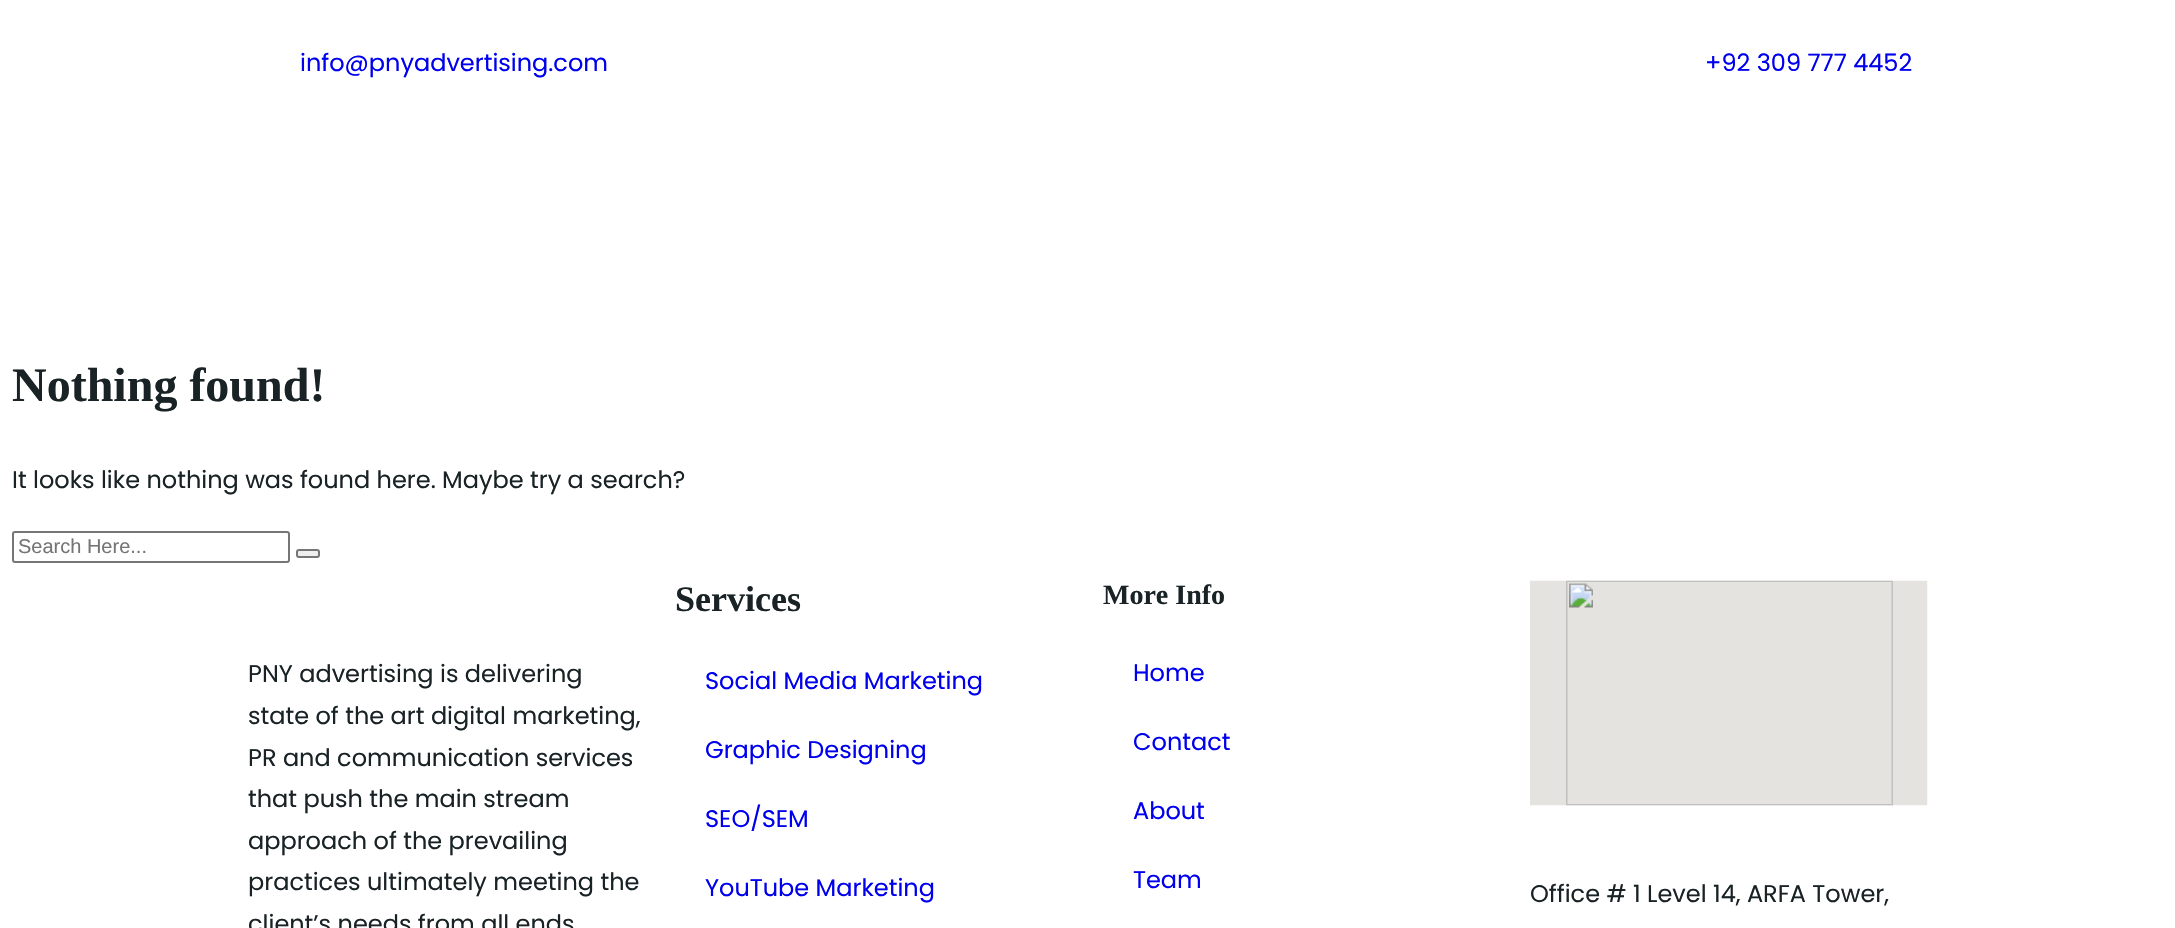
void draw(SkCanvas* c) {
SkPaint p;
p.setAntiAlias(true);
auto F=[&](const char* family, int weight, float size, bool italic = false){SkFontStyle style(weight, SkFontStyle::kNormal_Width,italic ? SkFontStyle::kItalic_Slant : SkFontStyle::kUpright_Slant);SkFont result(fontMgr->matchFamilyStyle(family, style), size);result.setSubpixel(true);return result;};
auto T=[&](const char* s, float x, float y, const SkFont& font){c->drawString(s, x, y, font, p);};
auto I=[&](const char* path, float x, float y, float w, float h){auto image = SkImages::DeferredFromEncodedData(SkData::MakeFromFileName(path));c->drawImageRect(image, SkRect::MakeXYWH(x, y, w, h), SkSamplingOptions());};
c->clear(0xffffffff);
auto f1 = F("Poppins",400,24);
p.setColor(0xff0000ee);
T("info@pnyadvertising.com",300,71,f1);
T("+92 309 777 4452",1705,71,f1);
auto f2 = F("Liberation Serif",700,48);
p.setColor(0xff192225);
T("Nothing found!",12,401,f2);
T("It looks like nothing was found here. Maybe try a search?",12,488,f1);
p.setStroke(true);
p.setStrokeWidth(2);
p.setColor(0xff767676);
c->drawRoundRect(SkRect::MakeXYWH(13,532,276,30),2,2,p);
auto f3 = F("Liberation Sans",400,20);
p.setStroke(false);
p.setColor(0xff757575);
T("Search Here...",18,553,f3);
p.setColor(0xffefefef);
c->drawRoundRect(SkRect::MakeXYWH(297,550,22,7),2,2,p);
p.setStroke(true);
p.setColor(0xff767676);
c->drawRoundRect(SkRect::MakeXYWH(297,550,22,7),2,2,p);
p.setStroke(false);
p.setColor(0xff192225);
T("PNY advertising is delivering",248,682,f1);
T("state of the art digital marketing,",248,724,f1);
T("PR and communication services",248,766,f1);
T("that push the main stream",248,807,f1);
T("approach of the prevailing",248,849,f1);
T("practices ultimately meeting the",248,890,f1);
T("client’s needs from all ends",248,932,f1);
auto f4 = F("Liberation Serif",700,36);
T("Services",675,611,f4);
p.setColor(0xff0000ee);
T("Social Media Marketing",705,689,f1);
T("Graphic Designing",705,758,f1);
T("SEO/SEM",705,827,f1);
T("YouTube Marketing",705,896,f1);
auto f5 = F("Liberation Serif",700,28);
p.setColor(0xff192225);
T("More Info",1103,604,f5);
p.setColor(0xff0000ee);
T("Home",1133,681,f1);
T("Contact",1133,750,f1);
T("About",1133,819,f1);
T("Team",1133,888,f1);
I("1.png",1530,580,398,226);
p.setColor(0xff192225);
T("Office # 1 Level 14, ARFA Tower,",1530,902,f1);
}
